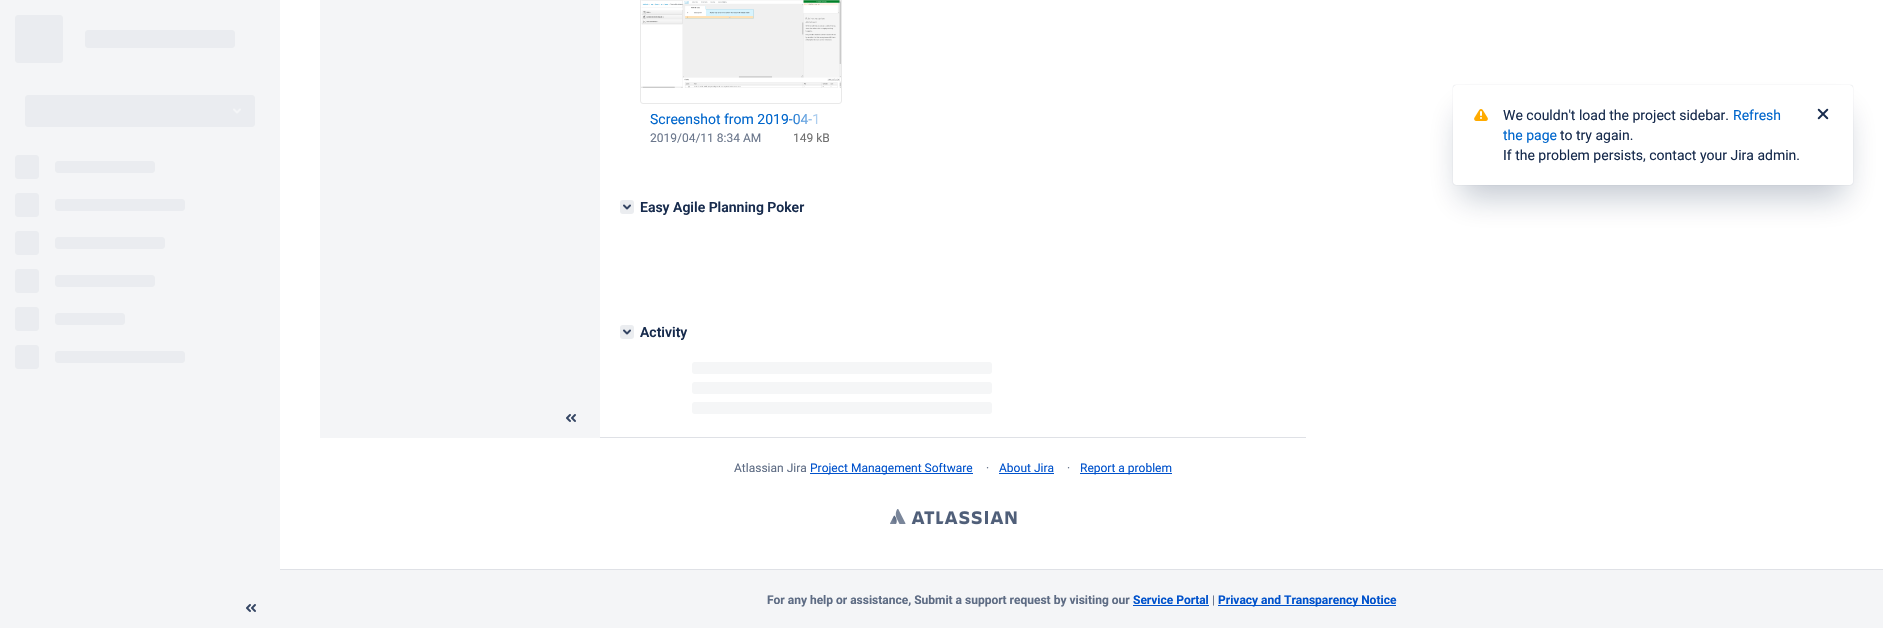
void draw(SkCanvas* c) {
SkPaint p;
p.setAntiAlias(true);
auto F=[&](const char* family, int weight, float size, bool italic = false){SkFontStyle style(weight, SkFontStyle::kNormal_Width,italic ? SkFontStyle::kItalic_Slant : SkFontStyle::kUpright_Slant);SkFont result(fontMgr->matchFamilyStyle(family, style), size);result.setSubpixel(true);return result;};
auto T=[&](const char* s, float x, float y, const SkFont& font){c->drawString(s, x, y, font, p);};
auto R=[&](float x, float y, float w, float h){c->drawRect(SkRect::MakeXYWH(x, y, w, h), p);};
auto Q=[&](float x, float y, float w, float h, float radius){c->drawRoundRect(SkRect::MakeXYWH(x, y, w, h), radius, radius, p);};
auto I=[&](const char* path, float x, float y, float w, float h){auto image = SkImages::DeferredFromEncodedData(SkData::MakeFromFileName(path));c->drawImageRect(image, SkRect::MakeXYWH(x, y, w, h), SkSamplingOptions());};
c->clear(0xfff4f5f7);
I("1.png",15,15,240,354);
I("2.png",246,604,10,8);
p.setColor(0xffffffff);
R(280,0,1603,569);
p.setColor(0xffdfe1e6);
R(280,569,1603,1);
p.setColor(0xfff4f5f7);
R(320,0,280,438);
I("2.png",566,414,10,8);
p.setColor(0xffdfe1e6);
R(600,437,706,1);
p.setStroke(true);
p.setStrokeWidth(1);
p.setColor(0xffe9e9e9);
c->drawRoundRect(SkRect::MakeXYWH(640.5,-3.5,201,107),2.5,2.5,p);
I("3.png",641,0,200,88);
auto f1 = F("Roboto",400,14);
p.setStroke(false);
p.setColor(0xff0066cc);
T("Screenshot from 2019-04-1",650,124,f1);
{
const SkColor colors[] = {0x00ffffff,0xffffffff};
const float stops[] = {0,1};
const SkPoint ends[] = {{788,120}, {830,120}};
p.setShader(SkGradientShader::MakeLinear(ends, colors, stops, 2, SkTileMode::kClamp));
p.setAlpha(255);
}
R(789,113,29,12);
auto f2 = F("Roboto",400,12);
p.setShader(nullptr);
p.setColor(0xff6b778c);
T("2019/04/11 8:34 AM",650,142,f2);
p.setColor(0xff707070);
T("149 kB",793,142,f2);
p.setColor(0xffebedf0);
Q(620,200,14,14,3);
I("4.png",623,204,8,6);
auto f3 = F("Roboto",600,14);
p.setColor(0xff172b4d);
T("Easy Agile Planning Poker",640,212,f3);
p.setColor(0xffebedf0);
Q(620,325,14,14,3);
I("4.png",623,329,8,6);
p.setColor(0xff172b4d);
T("Activity",640,337,f3);
p.setColor(0xfff5f6f7);
Q(692,362,300,12,3);
Q(692,382,300,12,3);
Q(692,402,300,12,3);
p.setColor(0xff5e6c84);
T("Atlassian Jira",734,472,f2);
p.setColor(0xff0052cc);
R(810,473,163,1);
T("Project Management Software",810,472,f2);
p.setColor(0xff5e6c84);
T("·",986,472,f2);
p.setColor(0xff0052cc);
T("About Jira",999,472,f2);
R(999,473,55,1);
p.setColor(0xff5e6c84);
T("·",1067,472,f2);
p.setColor(0xff0052cc);
R(1080,473,92,1);
T("Report a problem",1080,472,f2);
I("5.png",890,509,127,16);
auto f4 = F("Roboto",700,12);
p.setColor(0xff5e6c84);
T("For any help or assistance, Submit a support request by visiting our",767,604,f4);
p.setColor(0xff0052cc);
T("Service Portal",1133,604,f4);
R(1133,605,76,1);
p.setColor(0xff5e6c84);
T("|",1212,604,f2);
p.setColor(0xff0052cc);
R(1218,605,178,1);
T("Privacy and Transparency Notice",1218,604,f4);
p.setColor(0x40091e42);
p.setMaskFilter(SkMaskFilter::MakeBlur(kNormal_SkBlurStyle, .5));
c->drawRoundRect(SkRect::MakeXYWH(1453,85,400,100),3,3,p);
p.setMaskFilter(nullptr);
p.setMaskFilter(SkMaskFilter::MakeBlur(kNormal_SkBlurStyle, 16));
c->drawRect(SkRect::MakeXYWH(1461,113,384,84),p);
p.setMaskFilter(nullptr);
p.setColor(0xffffffff);
Q(1453,85,400,100,3);
I("6.png",1474,109,14,12);
p.setColor(0xff172b4d);
T("We couldn't load the project sidebar.",1503,120,f1);
p.setColor(0xff0066cc);
T("Refresh",1733,120,f1);
I("7.png",1817,108,12,12);
T("the page",1503,140,f1);
p.setColor(0xff172b4d);
T("to try again.",1560,140,f1);
T("If the problem persists, contact your Jira admin.",1503,160,f1);
}
